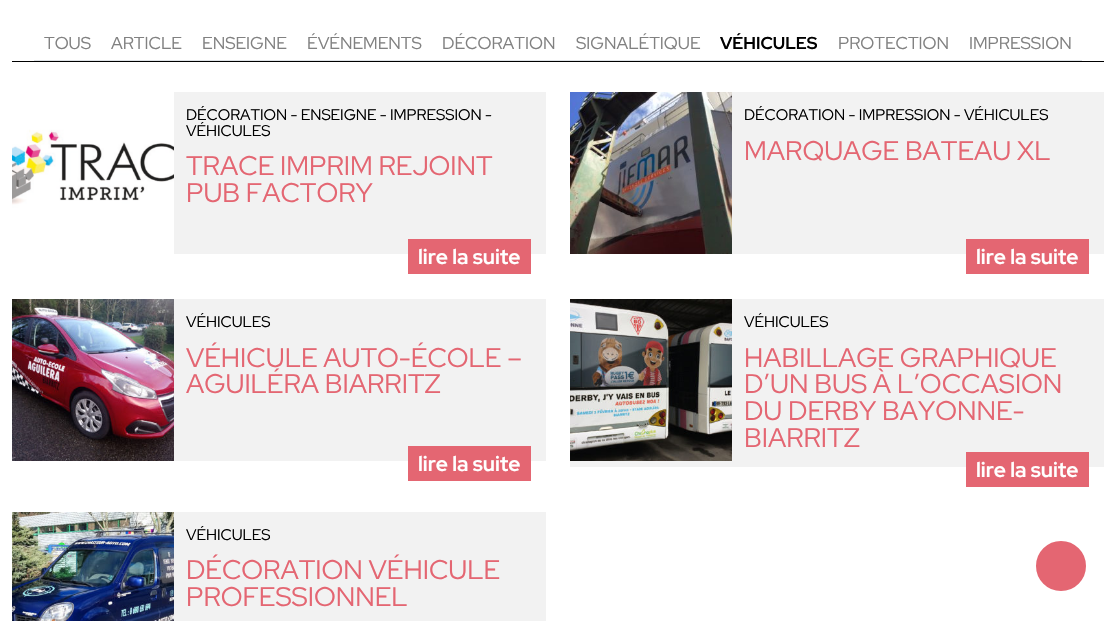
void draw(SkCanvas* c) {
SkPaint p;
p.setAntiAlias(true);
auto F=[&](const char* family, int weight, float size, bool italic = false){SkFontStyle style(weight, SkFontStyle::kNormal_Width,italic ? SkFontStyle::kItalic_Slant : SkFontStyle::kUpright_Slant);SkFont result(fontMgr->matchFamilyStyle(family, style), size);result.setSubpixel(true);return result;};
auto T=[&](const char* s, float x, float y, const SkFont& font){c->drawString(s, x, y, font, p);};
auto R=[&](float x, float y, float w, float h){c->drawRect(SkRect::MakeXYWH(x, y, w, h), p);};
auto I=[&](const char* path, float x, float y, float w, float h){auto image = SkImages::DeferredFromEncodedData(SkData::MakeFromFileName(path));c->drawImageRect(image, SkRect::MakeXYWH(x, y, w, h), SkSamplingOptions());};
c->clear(0xffffffff);
p.setColor(0xff000000);
R(12,61,1092,1);
p.setColor(0xffdee2e6);
R(34,60,1048,1);
auto f1 = F("Red Hat Display",400,17.25);
p.setColor(0xff818181);
T("TOUS",44,49,f1);
T("ARTICLE",111,49,f1);
T("ENSEIGNE",202,49,f1);
T("ÉVÉNEMENTS",307,49,f1);
T("DÉCORATION",442,49,f1);
T("SIGNALÉTIQUE",576,49,f1);
auto f2 = F("Red Hat Display",700,17.25);
p.setColor(0xff000000);
T("VÉHICULES",720,49,f2);
p.setColor(0xff818181);
T("PROTECTION",838,49,f1);
T("IMPRESSION",969,49,f1);
p.setColor(0xfff2f2f2);
R(174,92,372,162);
I("1.png",12,92,162,162);
auto f3 = F("Red Hat Display",400,15.4);
p.setColor(0xff000000);
T("DÉCORATION - ENSEIGNE - IMPRESSION -",186,120,f3);
T("VÉHICULES",186,136,f3);
auto f4 = F("Red Hat Display",400,26.9);
p.setColor(0xffe46672);
T("TRACE IMPRIM REJOINT",186,175,f4);
T("PUB FACTORY",186,202,f4);
R(408,239,123,35);
auto f5 = F("Red Hat Display",700,21);
p.setColor(0xffffffff);
T("lire la suite",418,264,f5);
p.setColor(0xfff2f2f2);
R(732,92,372,162);
I("2.png",570,92,162,162);
p.setColor(0xff000000);
T("DÉCORATION - IMPRESSION - VÉHICULES",744,120,f3);
p.setColor(0xffe46672);
T("MARQUAGE BATEAU XL",744,160,f4);
R(966,239,123,35);
p.setColor(0xffffffff);
T("lire la suite",976,264,f5);
p.setColor(0xfff2f2f2);
R(174,299,372,162);
I("3.png",12,299,162,162);
p.setColor(0xff000000);
T("VÉHICULES",186,327,f3);
p.setColor(0xffe46672);
T("VÉHICULE AUTO-ÉCOLE –",186,367,f4);
T("AGUILÉRA BIARRITZ",186,393,f4);
R(408,446,123,35);
p.setColor(0xffffffff);
T("lire la suite",418,471,f5);
p.setColor(0xfff2f2f2);
R(570,299,534,168);
I("4.png",570,299,162,162);
p.setColor(0xff000000);
T("VÉHICULES",744,327,f3);
p.setColor(0xffe46672);
T("HABILLAGE GRAPHIQUE",744,367,f4);
T("D’UN BUS À L’OCCASION",744,393,f4);
T("DU DERBY BAYONNE-",744,420,f4);
T("BIARRITZ",744,447,f4);
R(966,452,123,35);
p.setColor(0xffffffff);
T("lire la suite",976,477,f5);
p.setColor(0xfff2f2f2);
R(174,512,372,109);
I("5.png",12,512,162,109);
p.setColor(0xff000000);
T("VÉHICULES",186,540,f3);
p.setColor(0xffe46672);
T("DÉCORATION VÉHICULE",186,579,f4);
T("PROFESSIONNEL",186,606,f4);
c->drawCircle(1061,566,23,p);
p.setStroke(true);
p.setStrokeWidth(4);
c->drawCircle(1061,566,23,p);
}
